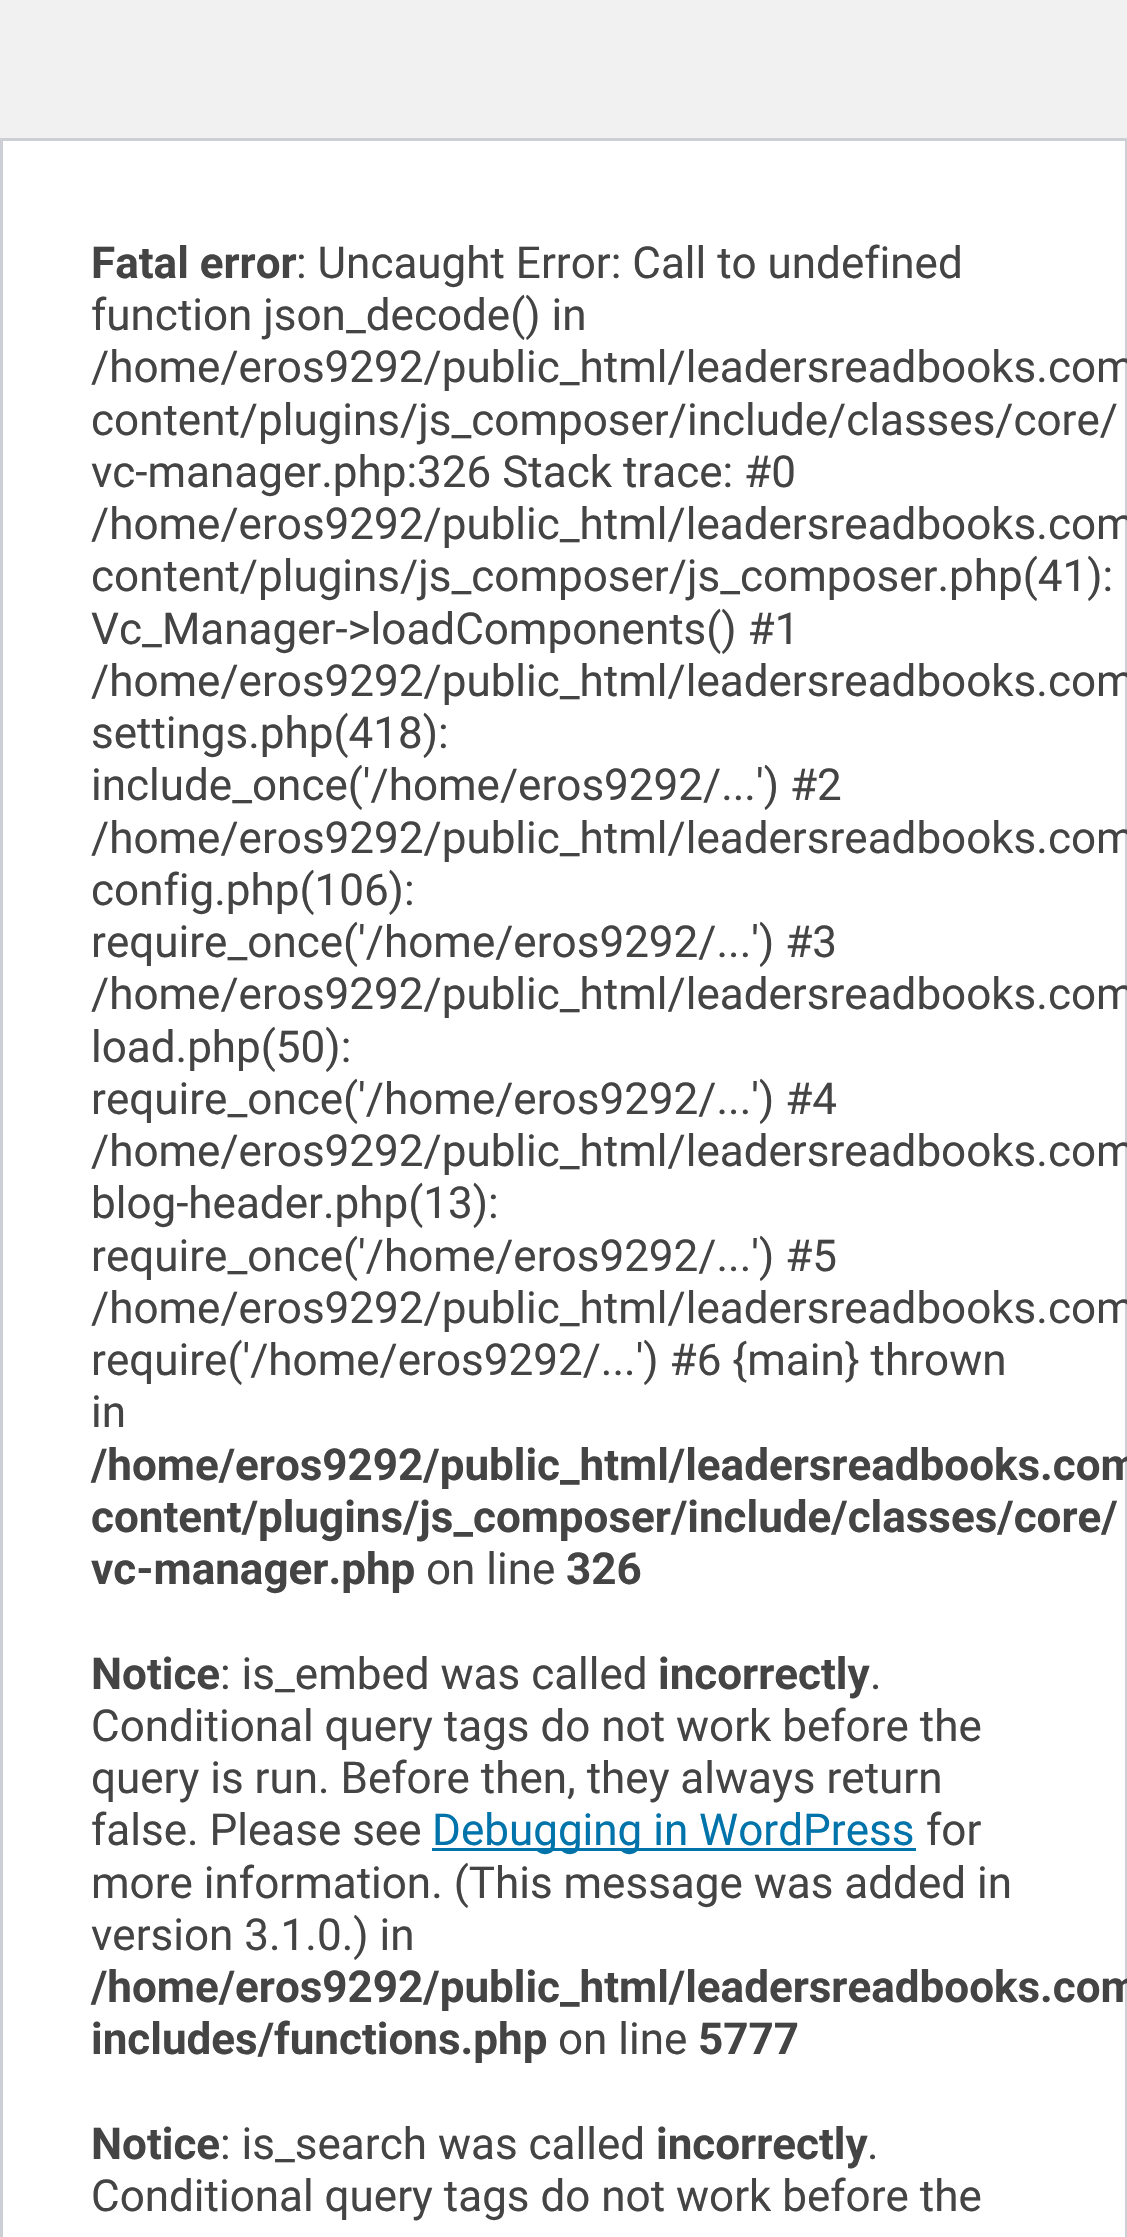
void draw(SkCanvas* c) {
SkPaint p;
p.setAntiAlias(true);
auto F=[&](const char* family, int weight, float size, bool italic = false){SkFontStyle style(weight, SkFontStyle::kNormal_Width,italic ? SkFontStyle::kItalic_Slant : SkFontStyle::kUpright_Slant);SkFont result(fontMgr->matchFamilyStyle(family, style), size);result.setSubpixel(true);return result;};
auto T=[&](const char* s, float x, float y, const SkFont& font){c->drawString(s, x, y, font, p);};
auto R=[&](float x, float y, float w, float h){c->drawRect(SkRect::MakeXYWH(x, y, w, h), p);};
c->clear(0xfff1f1f1);
p.setColor(0xffffffff);
c->drawRect(SkRect::MakeXYWH(1.5,139.5,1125,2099),p);
p.setStroke(true);
p.setStrokeWidth(3);
p.setColor(0xffccd0d4);
c->drawRect(SkRect::MakeXYWH(1.5,139.5,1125,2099),p);
auto f1 = F("Roboto",700,44);
p.setStroke(false);
p.setColor(0xff444444);
T("Fatal error",91,278,f1);
auto f2 = F("Roboto",400,44);
T(": Uncaught Error: Call to undefined",296,278,f2);
T("function json_decode() in",91,330,f2);
T("/home/eros9292/public_html/leadersreadbooks.com",91,382,f2);
T("content/plugins/js_composer/include/classes/core/",91,435,f2);
T("vc-manager.php:326 Stack trace: #0",91,487,f2);
T("/home/eros9292/public_html/leadersreadbooks.com",91,539,f2);
T("content/plugins/js_composer/js_composer.php(41):",91,591,f2);
T("Vc_Manager->loadComponents() #1",91,644,f2);
T("/home/eros9292/public_html/leadersreadbooks.com",91,696,f2);
T("settings.php(418):",91,748,f2);
T("include_once('/home/eros9292/...') #2",91,800,f2);
T("/home/eros9292/public_html/leadersreadbooks.com",91,853,f2);
T("config.php(106):",91,905,f2);
T("require_once('/home/eros9292/...') #3",91,957,f2);
T("/home/eros9292/public_html/leadersreadbooks.com",91,1009,f2);
T("load.php(50):",91,1062,f2);
T("require_once('/home/eros9292/...') #4",91,1114,f2);
T("/home/eros9292/public_html/leadersreadbooks.com",91,1166,f2);
T("blog-header.php(13):",91,1218,f2);
T("require_once('/home/eros9292/...') #5",91,1271,f2);
T("/home/eros9292/public_html/leadersreadbooks.com",91,1323,f2);
T("require('/home/eros9292/...') #6 {main} thrown",91,1375,f2);
T("in",91,1427,f2);
T("/home/eros9292/public_html/leadersreadbooks.com",91,1480,f1);
T("content/plugins/js_composer/include/classes/core/",91,1532,f1);
T("vc-manager.php",91,1584,f1);
T("on line",426,1584,f2);
T("326",566,1584,f1);
T("Notice",91,1689,f1);
T(": is_embed was called",220,1689,f2);
T("incorrectly",658,1689,f1);
T(".",870,1689,f2);
T("Conditional query tags do not work before the",91,1741,f2);
T("query is run. Before then, they always return",91,1793,f2);
T("false. Please see",91,1845,f2);
p.setColor(0xff0073aa);
R(432,1848,484,3);
T("Debugging in WordPress",432,1845,f2);
p.setColor(0xff444444);
T("for",926,1845,f2);
T("more information. (This message was added in",91,1898,f2);
T("version 3.1.0.) in",91,1950,f2);
T("/home/eros9292/public_html/leadersreadbooks.com",91,2002,f1);
T("includes/functions.php",91,2054,f1);
T("on line",558,2054,f2);
T("5777",698,2054,f1);
T("Notice",91,2159,f1);
T(": is_search was called",220,2159,f2);
T("incorrectly",656,2159,f1);
T(".",867,2159,f2);
T("Conditional query tags do not work before the",91,2211,f2);
}
